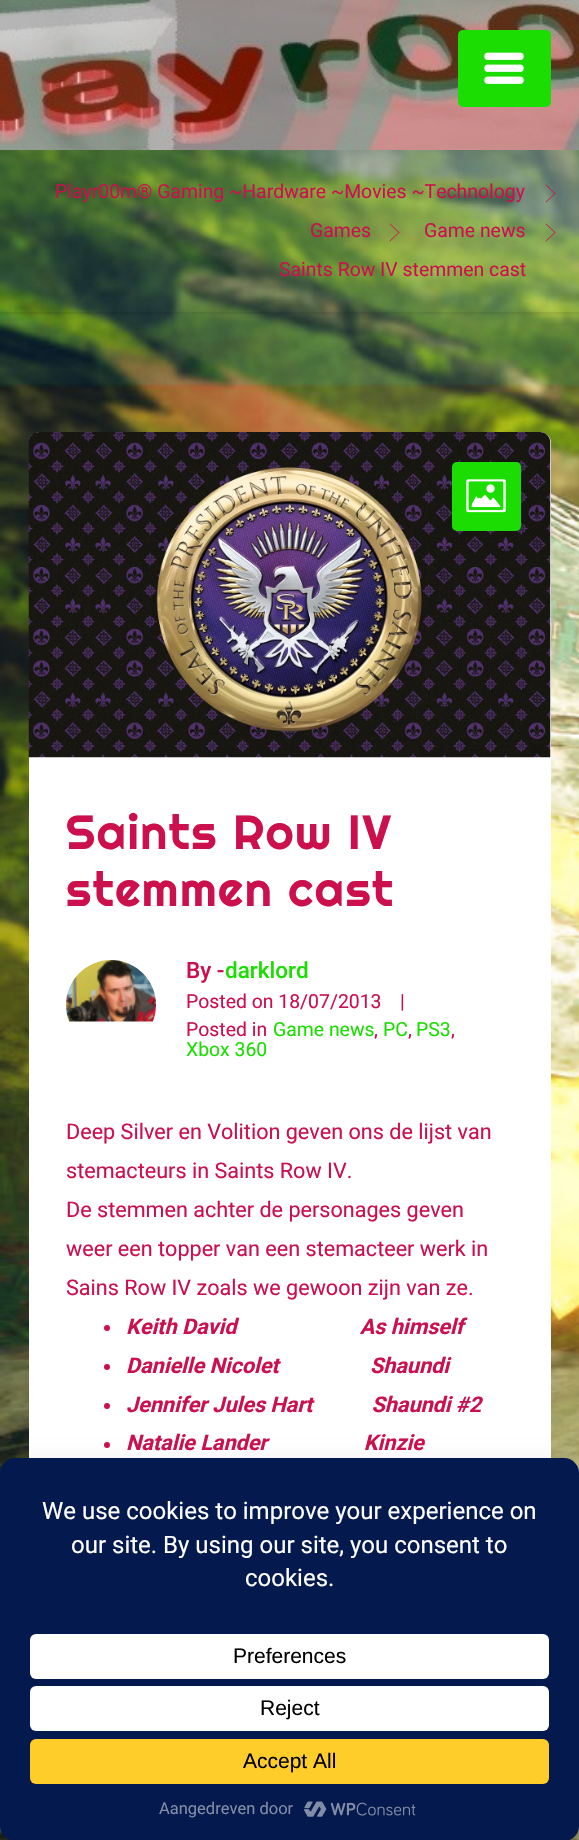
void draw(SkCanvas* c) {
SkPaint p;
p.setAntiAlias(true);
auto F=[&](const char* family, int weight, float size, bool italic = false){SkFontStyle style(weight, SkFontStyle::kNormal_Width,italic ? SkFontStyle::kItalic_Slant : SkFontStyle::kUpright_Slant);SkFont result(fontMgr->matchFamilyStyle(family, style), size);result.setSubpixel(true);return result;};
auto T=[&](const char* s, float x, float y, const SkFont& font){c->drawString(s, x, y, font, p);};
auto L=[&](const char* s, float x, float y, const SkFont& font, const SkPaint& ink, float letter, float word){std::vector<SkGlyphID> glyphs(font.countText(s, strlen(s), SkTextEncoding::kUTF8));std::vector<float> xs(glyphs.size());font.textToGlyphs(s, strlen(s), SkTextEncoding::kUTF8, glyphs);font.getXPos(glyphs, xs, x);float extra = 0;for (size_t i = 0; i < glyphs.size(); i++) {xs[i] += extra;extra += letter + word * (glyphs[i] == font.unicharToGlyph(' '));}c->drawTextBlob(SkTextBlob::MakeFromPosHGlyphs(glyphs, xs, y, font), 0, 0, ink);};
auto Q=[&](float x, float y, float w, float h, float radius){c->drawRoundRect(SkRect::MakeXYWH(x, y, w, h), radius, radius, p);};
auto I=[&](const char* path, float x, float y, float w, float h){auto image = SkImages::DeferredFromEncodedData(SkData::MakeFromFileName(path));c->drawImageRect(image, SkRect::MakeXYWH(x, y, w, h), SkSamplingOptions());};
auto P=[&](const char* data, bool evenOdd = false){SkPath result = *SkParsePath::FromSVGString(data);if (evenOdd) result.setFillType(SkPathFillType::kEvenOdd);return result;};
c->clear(0xffffffff);
I("1.png",0,150,579,1690);
I("2.png",0,0,579,150);
p.setColor(0xff1bdd02);
c->drawRoundRect(SkRect::MakeXYWH(459,31,91,75),4,4,p);
p.setStroke(true);
p.setStrokeWidth(2);
c->drawRoundRect(SkRect::MakeXYWH(459,31,91,75),4,4,p);
I("3.png",484,52,40,32);
c->save();
c->clipRect(SkRect::MakeXYWH(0,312,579,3));
p.setStroke(false);
p.setColor(0x14000000);
p.setMaskFilter(SkMaskFilter::MakeBlur(kNormal_SkBlurStyle, 1));
c->drawRect(SkRect::MakeXYWH(0,152,579,162),p);
p.setMaskFilter(nullptr);
c->restore();
auto f1 = F("Roboto",400,19.4);
p.setColor(0xffcc104e);
T("Playr00m® Gaming ~Hardware ~Movies ~Technology",55,198,f1);
c->drawPath(P("M545.5 202l9-8.5l-9-8.5l.5-.5l9.5 9l-9.5 9z"),p);
T("Games",310,237,f1);
c->drawPath(P("M389.5 241l9-8.5l-9-8.5l.5-.5l9.5 9l-9.5 9z"),p);
T("Game news",424,237,f1);
c->drawPath(P("M545.5 241l9-8.5l-9-8.5l.5-.5l9.5 9l-9.5 9z"),p);
T("Saints Row IV stemmen cast",279,276,f1);
p.setColor(0xffffffff);
c->drawPath(P("M40 432h500c6 0 11 5 11 11v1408h-522v-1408c0-6 5-11 11-11z"),p);
I("4.png",28,432,523,326);
p.setColor(0xff1bdd02);
Q(452,462,69,69,5);
I("5.png",466,479,40,34);
auto f2 = F("Righteous",400,48);
p.setColor(0xffcc104e);
L("Saints Row IV",66,849,f2,p,1.5,0);
L("stemmen cast",66,906,f2,p,1.5,0);
I("6.png",66,960,90,62);
auto f3 = F("Roboto",500,22.5);
T("By -",186,978,f3);
p.setColor(0xff1bdd02);
T("darklord",225,978,f3);
p.setColor(0xffcc104e);
T("Posted on 18/07/2013",186,1008,f1);
T("|",400,1008,f1);
T("Posted in",186,1036,f1);
p.setColor(0xff1bdd02);
T("Game news",273,1036,f1);
p.setColor(0xffcc104e);
T(",",374,1036,f1);
p.setColor(0xff1bdd02);
T("PC",383,1036,f1);
p.setColor(0xffcc104e);
T(",",408,1036,f1);
p.setColor(0xff1bdd02);
T("PS3",416,1036,f1);
p.setColor(0xffcc104e);
T(",",451,1036,f1);
p.setColor(0xff1bdd02);
T("Xbox 360",186,1056,f1);
auto f4 = F("Roboto",400,21.6);
p.setColor(0xffcc104e);
T("Deep Silver en Volition geven ons de lijst van",66,1139,f4);
T("stemacteurs in Saints Row IV.",66,1178,f4);
T("De stemmen achter de personages geven",66,1217,f4);
T("weer een topper van een stemacteer werk in",66,1256,f4);
T("Sains Row IV zoals we gewoon zijn van ze.",66,1295,f4);
c->drawCircle(107,1328,3,p);
auto f5 = F("Roboto",700,21.6,true);
T("Keith David                       As himself",126,1334,f5);
c->drawCircle(107,1367,3,p);
T("Danielle Nicolet                 Shaundi",126,1373,f5);
c->drawCircle(107,1406,3,p);
T("Jennifer Jules Hart           Shaundi #2",126,1412,f5);
c->drawCircle(107,1445,3,p);
T("Natalie Lander                  Kinzie",126,1450,f5);
p.setColor(0x3b000000);
p.setMaskFilter(SkMaskFilter::MakeBlur(kNormal_SkBlurStyle, 4.5));
c->drawRoundRect(SkRect::MakeXYWH(0,1467,579,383),15,15,p);
p.setMaskFilter(nullptr);
p.setColor(0x30000000);
p.setMaskFilter(SkMaskFilter::MakeBlur(kNormal_SkBlurStyle, 15));
c->drawRoundRect(SkRect::MakeXYWH(0,1473,579,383),15,15,p);
p.setMaskFilter(nullptr);
p.setColor(0xff04194e);
Q(0,1458,579,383,15);
auto f6 = F("Roboto",400,24);
p.setColor(0xffffffff);
T("We use cookies to improve your experience on",42,1519,f6);
T("our site. By using our site, you consent to",71,1553,f6);
T("cookies.",245,1586,f6);
Q(30,1634,519,45,6);
auto f7 = F("Liberation Sans",400,21);
p.setColor(0xff000000);
T("Preferences",233,1663,f7);
p.setColor(0xffffffff);
Q(30,1686,519,45,6);
p.setColor(0xff000000);
T("Reject",260,1715,f7);
p.setColor(0xffffcd2a);
Q(30,1739,519,45,6);
p.setColor(0xff000000);
T("Accept All",243,1768,f7);
auto f8 = F("Roboto",400,16.5);
p.setColor(0xff828ca7);
T("Aangedreven door",159,1814,f8);
I("7.png",304,1801,112,16);
}
